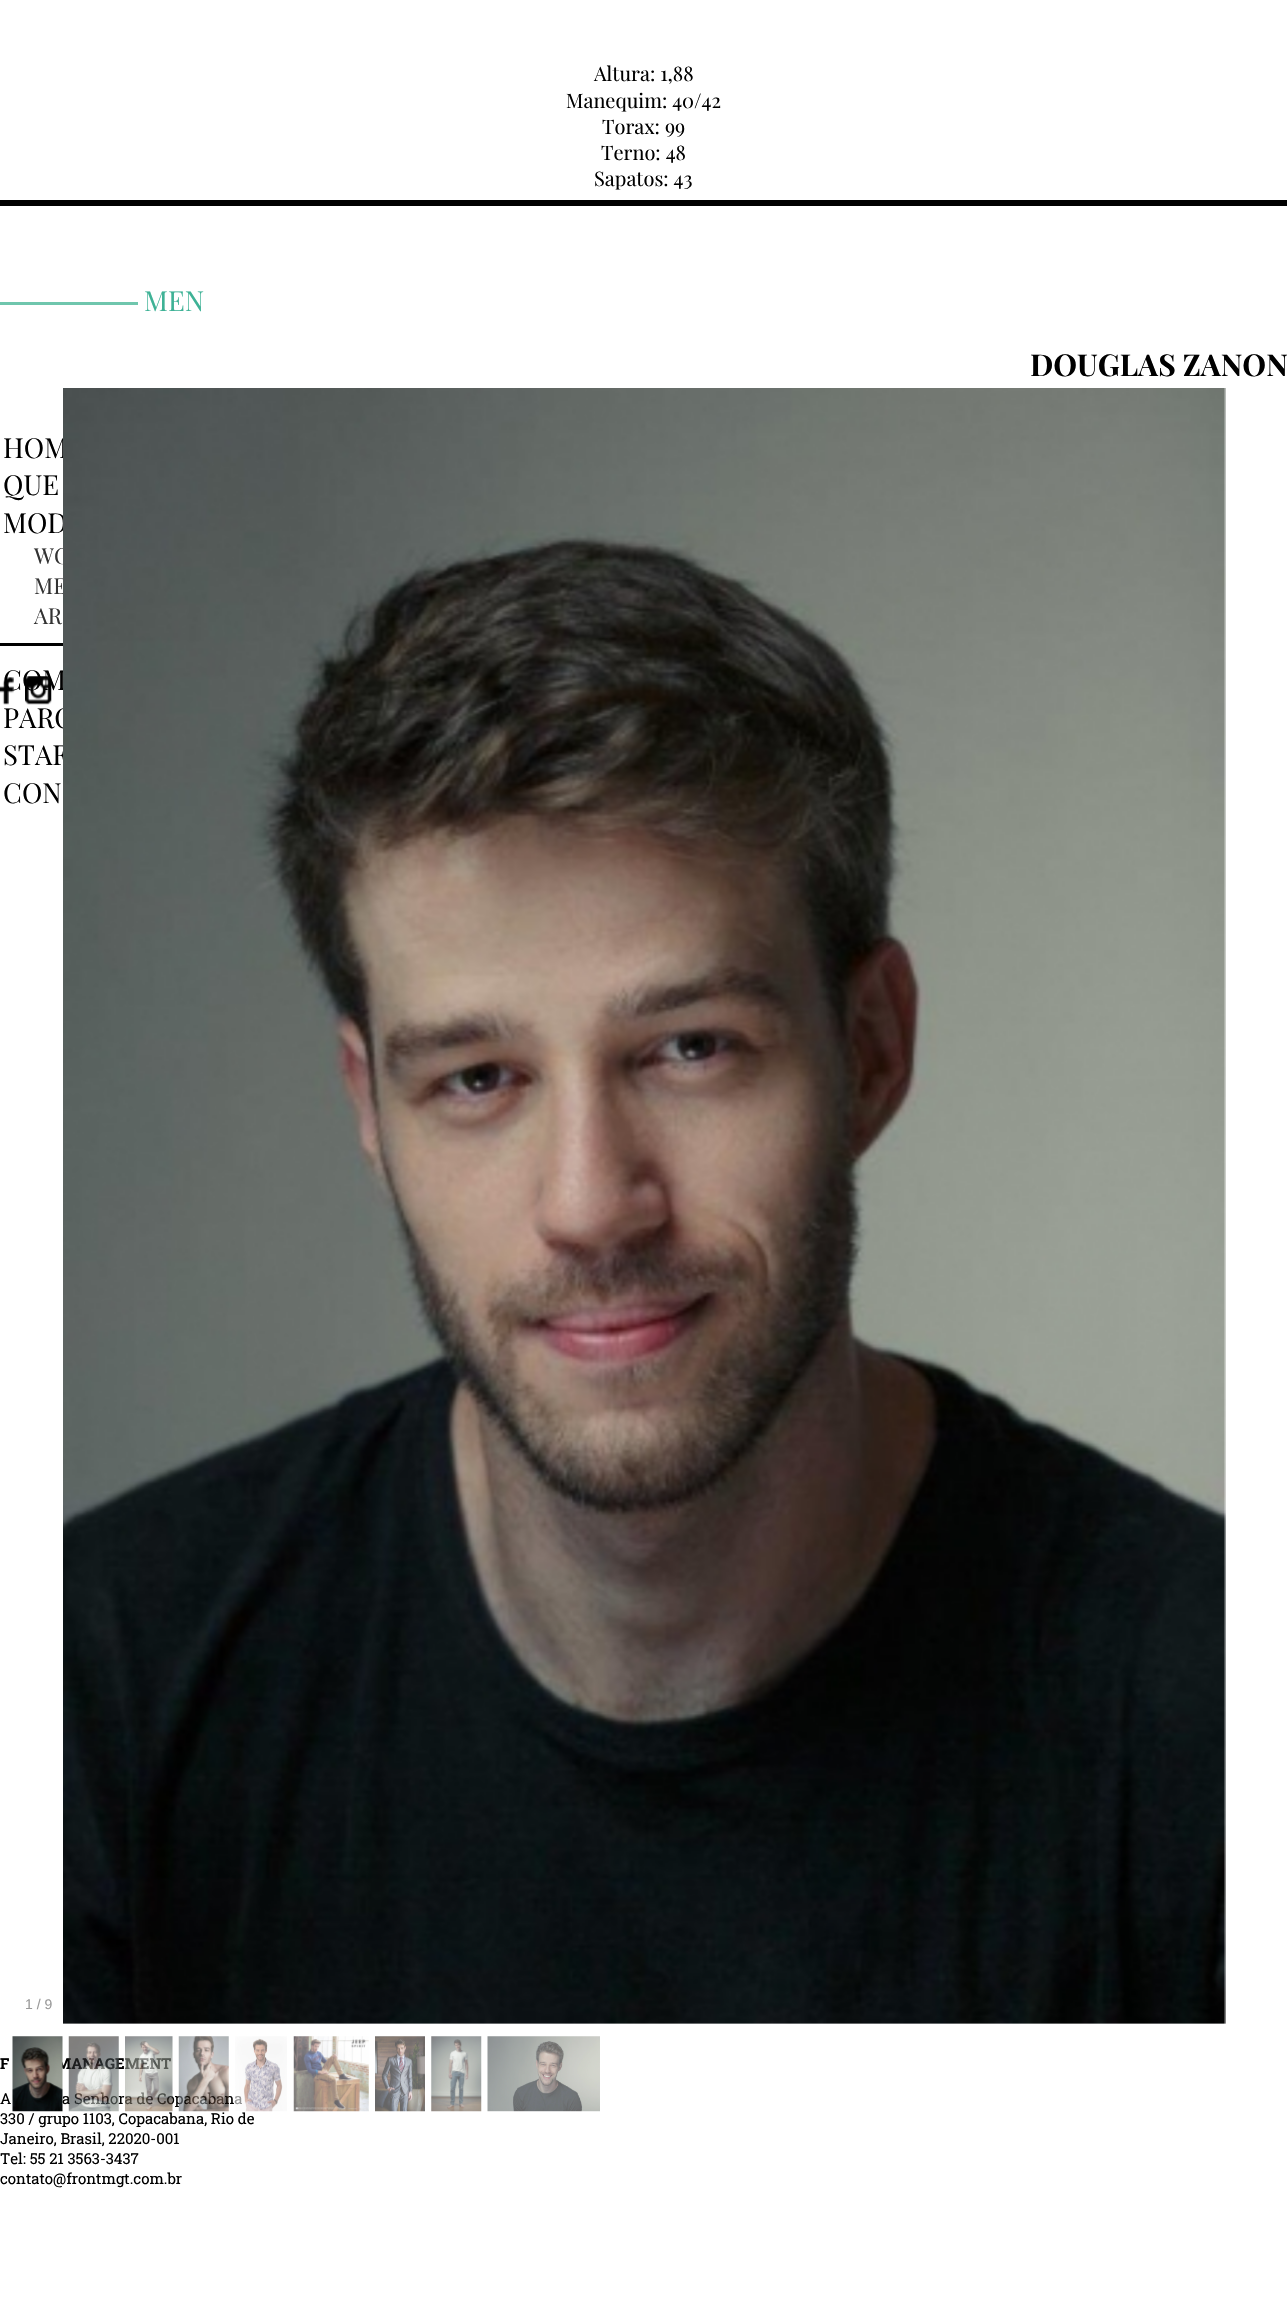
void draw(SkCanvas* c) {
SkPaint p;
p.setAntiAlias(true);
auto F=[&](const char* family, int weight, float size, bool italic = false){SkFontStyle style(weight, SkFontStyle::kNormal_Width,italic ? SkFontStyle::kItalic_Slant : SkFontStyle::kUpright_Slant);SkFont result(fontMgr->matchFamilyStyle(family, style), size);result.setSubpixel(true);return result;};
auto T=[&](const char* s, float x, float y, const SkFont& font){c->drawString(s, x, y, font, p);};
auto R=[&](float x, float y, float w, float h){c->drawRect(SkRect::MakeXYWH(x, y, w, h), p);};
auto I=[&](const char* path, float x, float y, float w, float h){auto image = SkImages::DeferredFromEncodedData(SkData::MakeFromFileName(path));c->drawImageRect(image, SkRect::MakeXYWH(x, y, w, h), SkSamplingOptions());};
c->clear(0xffffffff);
auto f1 = F("Playfair Display",400,20);
p.setColor(0xff000000);
T("Altura: 1,88",594,81,f1);
T("Manequim: 40/42",566,108,f1);
T("Torax: 99",602,134,f1);
T("Terno: 48",601,160,f1);
T("Sapatos: 43",594,186,f1);
auto f2 = F("Liberation Sans",400,14);
p.setColor(0xff999999);
T("1 / 9",25,2009,f2);
auto f3 = F("Playfair Display",400,27.5);
p.setColor(0xff000000);
T("HOM",3,458,f3);
T("MOD",3,533,f3);
auto f4 = F("Playfair Display",400,22);
p.setColor(0xff333333);
T("WO",34,564,f4);
T("ME",34,594,f4);
p.setColor(0xff000000);
T("COM",3,690,f3);
T("PARC",3,728,f3);
T("STAF",3,765,f3);
I("1.png",63,388,1163,1636);
auto f5 = F("Roboto Slab",700,15);
T("MANAGEMENT",56,2069,f5);
auto f6 = F("Roboto Slab",400,15);
T("a Senhora de Copacabana",62,2104,f6);
I("2.png",12,2036,51,76);
I("3.png",68,2036,51,76);
I("4.png",125,2036,48,76);
I("5.png",178,2036,51,76);
I("6.png",235,2036,52,76);
I("7.png",293,2036,76,76);
I("8.png",375,2036,50,76);
I("9.png",431,2036,51,76);
I("10.png",487,2036,113,76);
R(0,200,1287,6);
p.setColor(0xff3eb296);
T("MEN",144,311,f3);
p.setColor(0xff6fc6ad);
R(0,302,138,3);
auto f7 = F("Playfair Display",700,30);
p.setColor(0xff000000);
T("DOUGLAS ZANON",1030,376,f7);
T("QUE",3,495,f3);
p.setColor(0xff333333);
T("AR",34,624,f4);
p.setColor(0xff000000);
T("CON",3,803,f3);
R(0,643,63,3);
I("11.png",0,677,14,28);
I("12.png",25,676,27,29);
T("F",0,2069,f5);
T("A",0,2104,f6);
T("330 / grupo 1103, Copacabana, Rio de",0,2124,f6);
T("Janeiro, Brasil, 22020-001",0,2144,f6);
T("Tel: 55 21 3563-3437",0,2164,f6);
T("contato@frontmgt.com.br",0,2184,f6);
}
